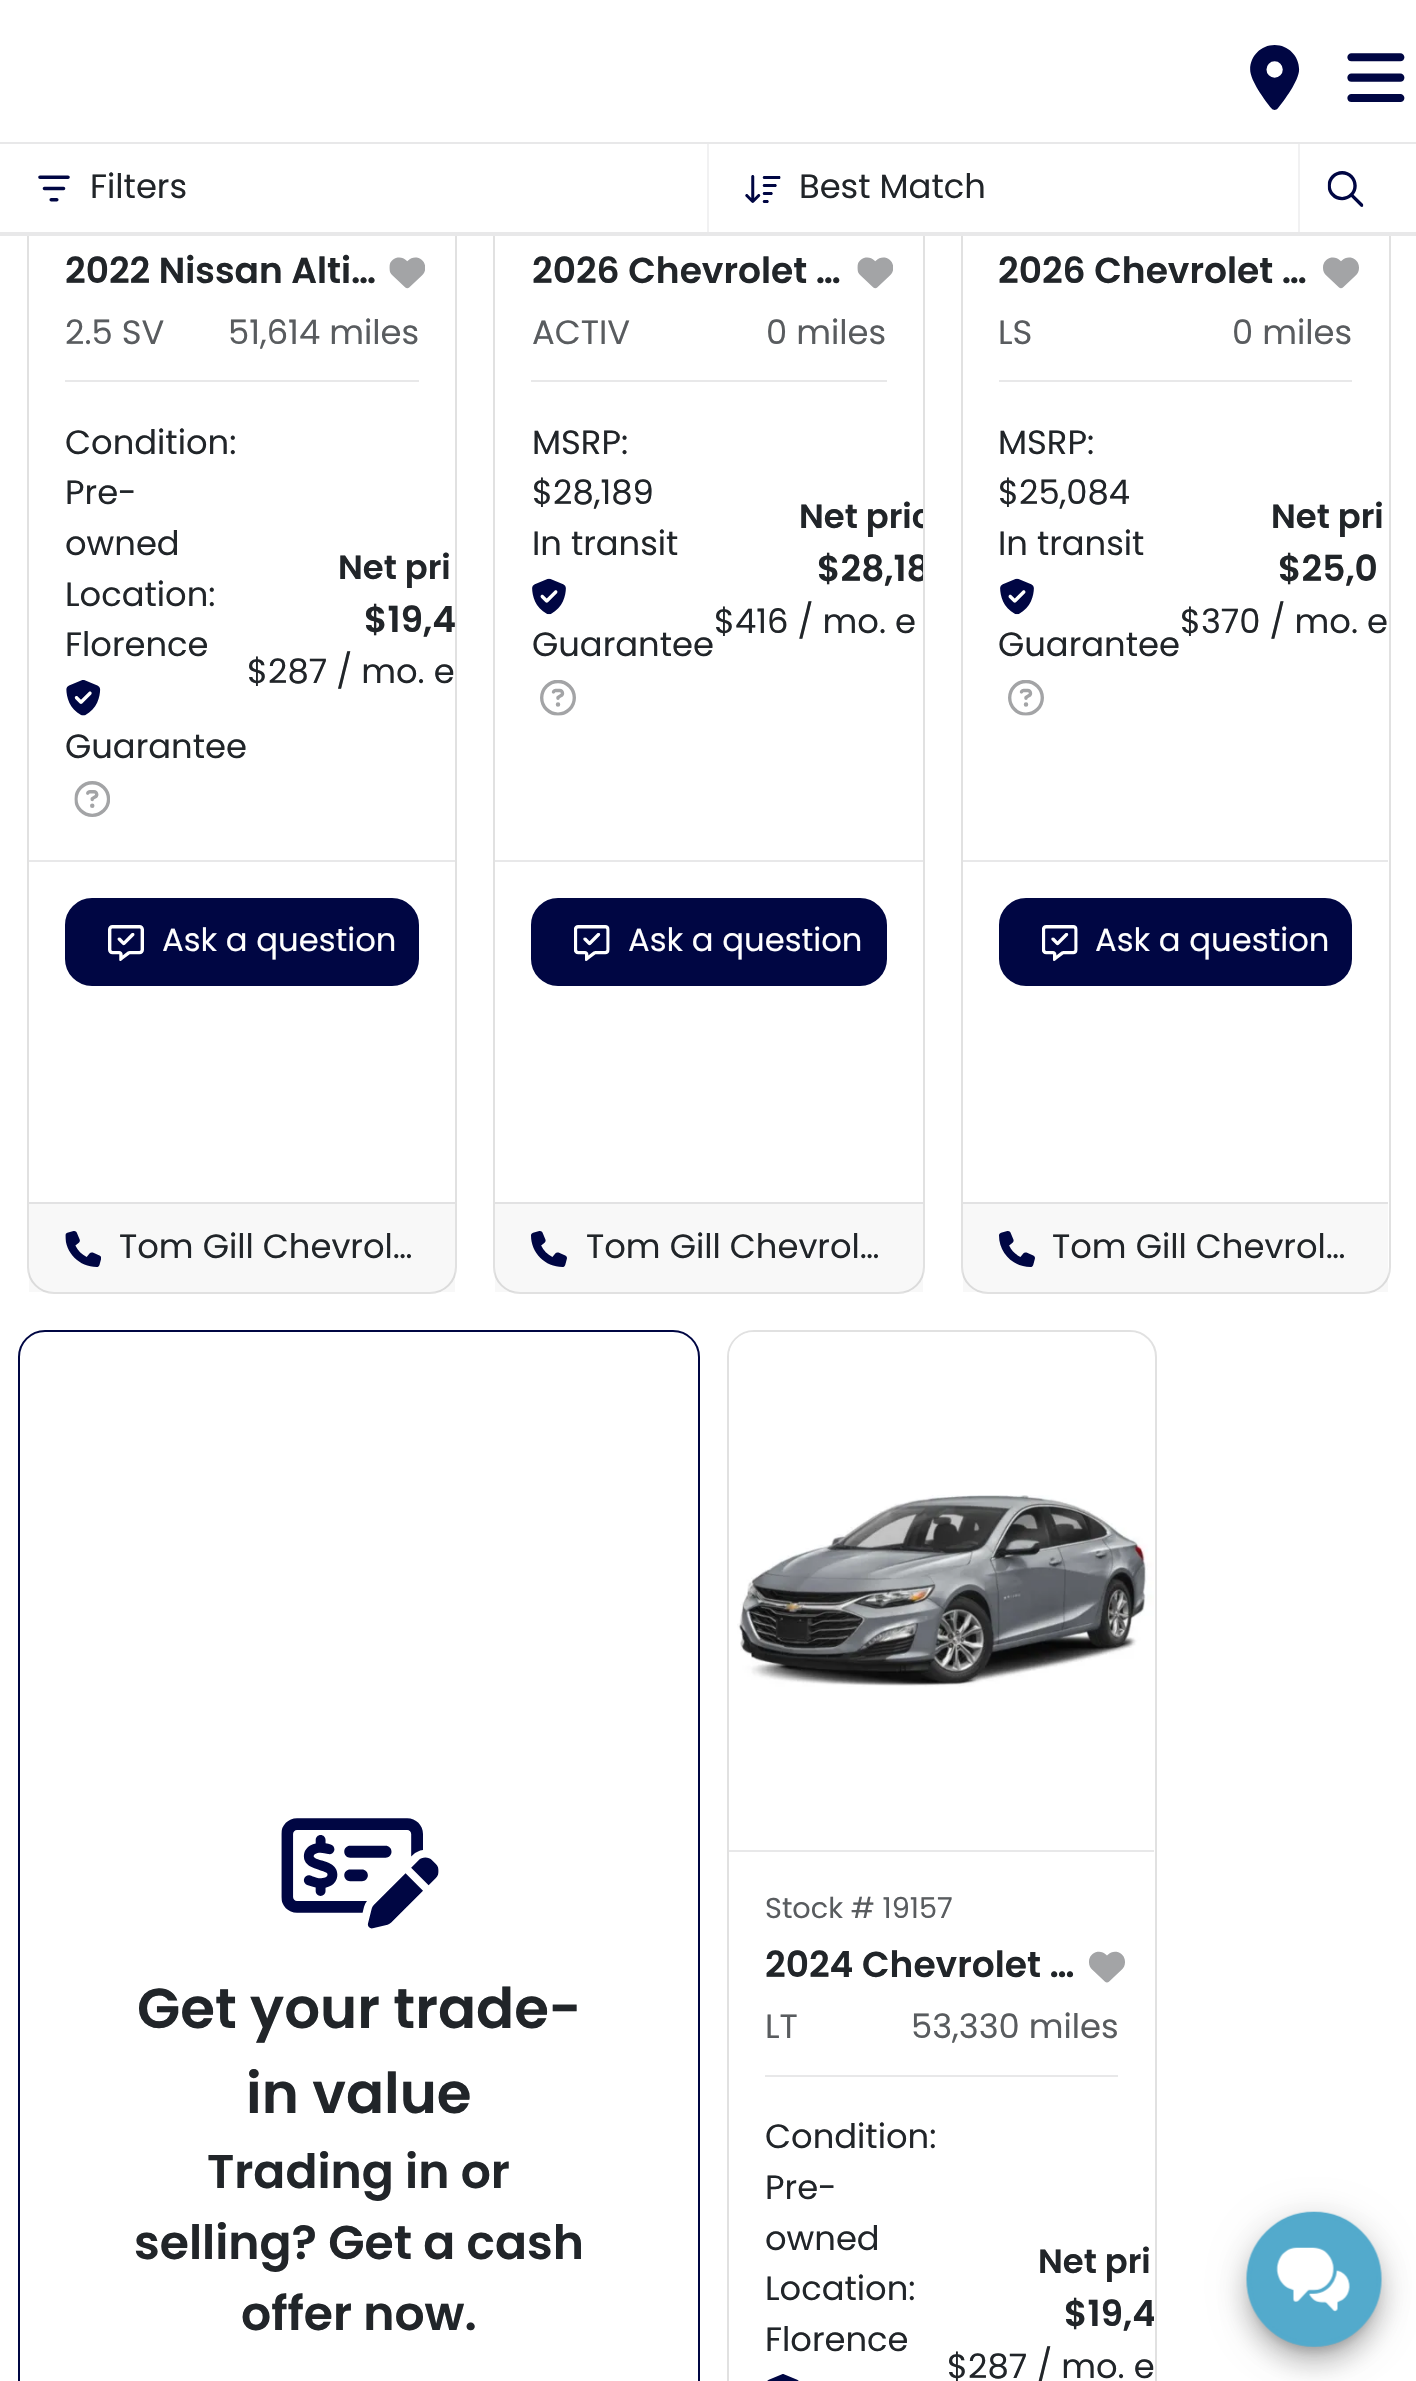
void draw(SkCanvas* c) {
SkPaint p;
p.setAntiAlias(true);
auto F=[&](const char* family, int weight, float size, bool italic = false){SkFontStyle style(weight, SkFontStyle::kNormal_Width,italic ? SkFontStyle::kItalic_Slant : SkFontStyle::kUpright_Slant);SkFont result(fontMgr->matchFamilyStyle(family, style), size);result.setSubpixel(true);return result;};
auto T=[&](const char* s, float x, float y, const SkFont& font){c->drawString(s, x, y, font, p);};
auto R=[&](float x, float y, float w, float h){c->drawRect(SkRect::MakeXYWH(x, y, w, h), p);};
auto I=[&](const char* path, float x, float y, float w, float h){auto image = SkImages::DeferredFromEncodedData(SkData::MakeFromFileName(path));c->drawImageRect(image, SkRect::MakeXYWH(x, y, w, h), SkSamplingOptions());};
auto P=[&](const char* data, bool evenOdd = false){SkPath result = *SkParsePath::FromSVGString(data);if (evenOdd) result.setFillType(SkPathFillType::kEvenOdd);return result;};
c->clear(0xffffffff);
p.setStroke(true);
p.setStrokeWidth(2);
p.setColor(0xffe1e1e1);
c->drawRoundRect(SkRect::MakeXYWH(28,-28,428,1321),26,26,p);
c->drawRoundRect(SkRect::MakeXYWH(494,-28,430,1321),26,26,p);
c->drawRoundRect(SkRect::MakeXYWH(962,-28,428,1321),26,26,p);
p.setStroke(false);
p.setColor(0xffffffff);
R(27,0,1364,142);
I("1.png",1250,45,50,65);
I("2.png",1347,53,58,49);
R(27,144,1364,88);
p.setColor(0xffe8e8e9);
R(0,232,1416,4);
R(0,142,1416,2);
I("3.png",38,175,32,27);
auto f1 = F("Poppins",400,33.75);
p.setColor(0xff212529);
T("Filters",90,198,f1);
p.setColor(0xfff1f1f2);
R(707,144,2,88);
I("4.png",745,175,36,28);
p.setColor(0xff212529);
T("Best Match",799,198,f1);
p.setColor(0xfff1f1f2);
R(1298,144,2,88);
I("5.png",1327,171,37,36);
auto f2 = F("Poppins",600,36);
p.setColor(0xff212529);
T("2022 Nissan Alti…",65,283,f2);
I("6.png",389,257,36,32);
p.setColor(0xff595c5f);
T("2.5 SV",65,344,f1);
T("51,614 miles",228,344,f1);
p.setColor(0xffe8e8e9);
R(65,380,354,2);
p.setColor(0xff212529);
T("Condition:",65,454,f1);
T("Pre-",65,504,f1);
T("owned",65,555,f1);
T("Location:",65,606,f1);
T("Florence",65,656,f1);
I("7.png",66,680,35,36);
T("Guarantee",65,758,f1);
I("8.png",74,781,36,36);
auto f3 = F("Poppins",600,33.75);
T("Net pri",338,579,f3);
T("$19,4",364,632,f2);
T("$287 / mo. e",247,683,f1);
p.setColor(0xffe8e8e9);
R(29,860,426,2);
p.setColor(0xff000643);
c->drawRoundRect(SkRect::MakeXYWH(66,899,352,86),26,26,p);
p.setStroke(true);
c->drawRoundRect(SkRect::MakeXYWH(66,899,352,86),26,26,p);
I("9.png",108,925,36,36);
auto f4 = F("Poppins",400,32.25);
p.setStroke(false);
p.setColor(0xffffffff);
T("Ask a question",162,951,f4);
p.setColor(0x08181c21);
R(29,1204,426,88);
p.setColor(0xffe2e2e3);
R(29,1202,426,2);
I("10.png",65,1231,36,36);
p.setColor(0xff212529);
T("Tom Gill Chevrol…",119,1258,f1);
T("2026 Chevrolet …",532,283,f2);
I("6.png",857,257,36,32);
p.setColor(0xff595c5f);
T("ACTIV",532,344,f1);
T("0 miles",766,344,f1);
p.setColor(0xffe8e8e9);
R(531,380,356,2);
p.setColor(0xff212529);
T("MSRP:",532,454,f1);
T("$28,189",532,504,f1);
T("In transit",532,555,f1);
I("11.png",532,578,34,37);
T("Guarantee",532,656,f1);
I("12.png",540,680,36,36);
c->save();
c->clipPath(P("M520-362h378c14 0 25 11 25 25v1604c0 14-11 25-25 25h-378c-14 0-25-11-25-25v-1604c0-14 11-25 25-25z"),true);
T("Net pric",799,528,f3);
T("$28,18",817,581,f2);
c->restore();
T("$416 / mo. e",714,633,f1);
p.setColor(0xffe8e8e9);
R(495,860,428,2);
p.setColor(0xff000643);
c->drawRoundRect(SkRect::MakeXYWH(532,899,354,86),26,26,p);
p.setStroke(true);
c->drawRoundRect(SkRect::MakeXYWH(532,899,354,86),26,26,p);
I("13.png",574,925,36,36);
p.setStroke(false);
p.setColor(0xffffffff);
T("Ask a question",628,951,f4);
p.setColor(0x08181c21);
R(495,1204,428,88);
p.setColor(0xffe2e2e3);
R(495,1202,428,2);
I("14.png",531,1231,36,36);
p.setColor(0xff212529);
T("Tom Gill Chevrol…",586,1258,f1);
T("2026 Chevrolet …",998,283,f2);
I("15.png",1323,257,36,32);
p.setColor(0xff595c5f);
T("LS",998,344,f1);
T("0 miles",1232,344,f1);
p.setColor(0xffe8e8e9);
R(999,380,353,2);
p.setColor(0xff212529);
T("MSRP:",998,454,f1);
T("$25,084",998,504,f1);
T("In transit",998,555,f1);
I("16.png",1000,578,34,37);
T("Guarantee",998,656,f1);
I("17.png",1008,680,36,36);
T("Net pri",1271,528,f3);
T("$25,0",1278,581,f2);
T("$370 / mo. e",1180,633,f1);
p.setColor(0xffe8e8e9);
R(963,860,425,2);
p.setColor(0xff000643);
c->drawRoundRect(SkRect::MakeXYWH(1000,899,351,86),26,26,p);
p.setStroke(true);
c->drawRoundRect(SkRect::MakeXYWH(1000,899,351,86),26,26,p);
I("13.png",1042,925,36,36);
p.setStroke(false);
p.setColor(0xffffffff);
T("Ask a question",1095,951,f4);
p.setColor(0x08181c21);
R(963,1204,425,88);
p.setColor(0xffe2e2e3);
R(963,1202,425,2);
I("18.png",999,1231,36,36);
p.setColor(0xff212529);
T("Tom Gill Chevrol…",1052,1258,f1);
p.setStroke(true);
p.setColor(0xff000643);
c->drawRoundRect(SkRect::MakeXYWH(19,1331,680,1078),26,26,p);
I("19.png",281,1818,158,111);
auto f5 = F("Poppins",600,56.25);
p.setStroke(false);
p.setColor(0xff212529);
T("Get your trade-",137,2028,f5);
T("in value",246,2113,f5);
auto f6 = F("Poppins",600,47.25);
T("Trading in or",207,2188,f6);
T("selling? Get a cash",134,2259,f6);
T("offer now.",241,2330,f6);
p.setStroke(true);
p.setColor(0xffe1e1e1);
c->drawRoundRect(SkRect::MakeXYWH(728,1331,428,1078),26,26,p);
p.setStroke(false);
p.setColor(0xffe8e8e9);
R(729,1850,425,2);
p.setColor(0xffffffff);
c->drawPath(P("M754 1332h375c14 0 25 11 25 25v493h-425v-493c0-14 11-25 25-25z"),p);
I("20.png",737,1495,417,192);
auto f7 = F("Poppins",400,28.75);
p.setColor(0xff595c5f);
T("Stock # 19157",765,1918,f7);
p.setColor(0xff212529);
T("2024 Chevrolet …",765,1977,f2);
I("21.png",1089,1951,36,32);
p.setColor(0xff595c5f);
T("LT",765,2038,f1);
T("53,330 miles",911,2038,f1);
p.setColor(0xffe8e8e9);
R(765,2075,353,2);
p.setColor(0xff212529);
T("Condition:",765,2148,f1);
T("Pre-",765,2199,f1);
T("owned",765,2250,f1);
T("Location:",765,2300,f1);
T("Florence",765,2351,f1);
I("22.png",767,2374,32,7);
T("Net pri",1038,2273,f3);
c->save();
c->clipPath(P("M754 1332h375c14 0 25 11 25 25v1604c0 14-11 25-25 25h-375c-14 0-25-11-25-25v-1604c0-14 11-25 25-25z"),true);
T("$19,4",1064,2326,f2);
c->restore();
T("$287 / mo. e",947,2378,f1);
p.setColor(0x1f000000);
p.setMaskFilter(SkMaskFilter::MakeBlur(kNormal_SkBlurStyle, 16));
c->drawRoundRect(SkRect::MakeXYWH(1242,2214,144,144),72,72,p);
p.setMaskFilter(nullptr);
p.setColor(0x24000000);
p.setMaskFilter(SkMaskFilter::MakeBlur(kNormal_SkBlurStyle, 11));
c->drawRoundRect(SkRect::MakeXYWH(1244,2228,140,139),69.5,69.5,p);
p.setMaskFilter(nullptr);
p.setColor(0x33000000);
p.setMaskFilter(SkMaskFilter::MakeBlur(kNormal_SkBlurStyle, 5.5));
c->drawRoundRect(SkRect::MakeXYWH(1253,2230,122,121),60.5,60.5,p);
p.setMaskFilter(nullptr);
I("23.png",1246,2211,136,136);
}
